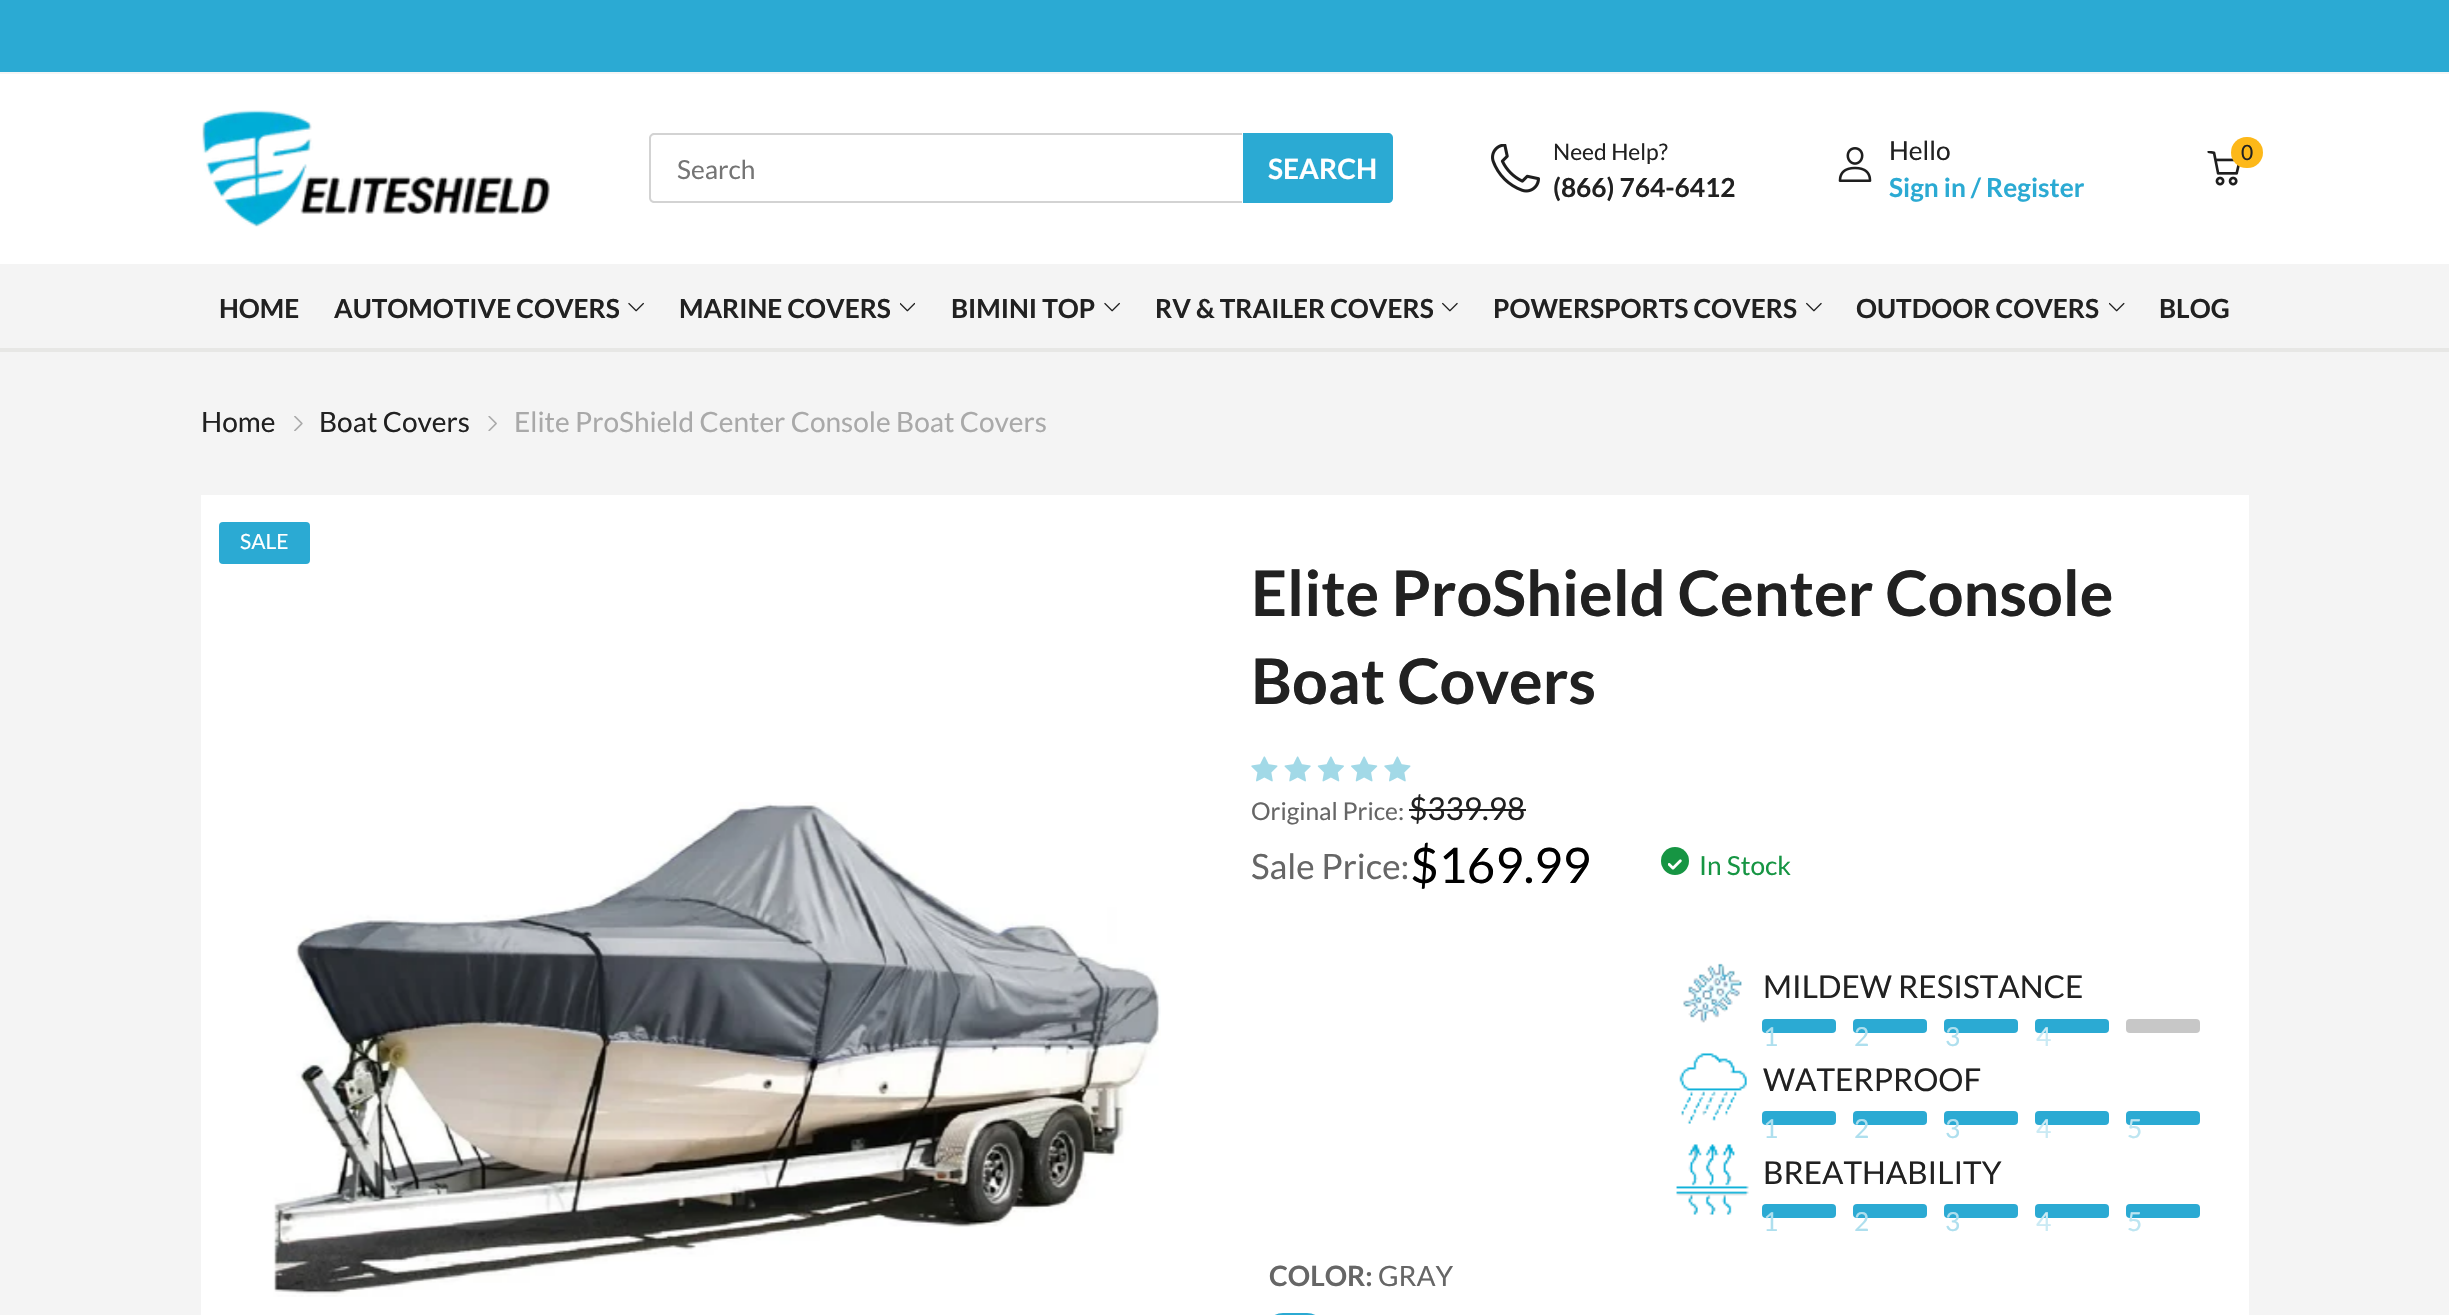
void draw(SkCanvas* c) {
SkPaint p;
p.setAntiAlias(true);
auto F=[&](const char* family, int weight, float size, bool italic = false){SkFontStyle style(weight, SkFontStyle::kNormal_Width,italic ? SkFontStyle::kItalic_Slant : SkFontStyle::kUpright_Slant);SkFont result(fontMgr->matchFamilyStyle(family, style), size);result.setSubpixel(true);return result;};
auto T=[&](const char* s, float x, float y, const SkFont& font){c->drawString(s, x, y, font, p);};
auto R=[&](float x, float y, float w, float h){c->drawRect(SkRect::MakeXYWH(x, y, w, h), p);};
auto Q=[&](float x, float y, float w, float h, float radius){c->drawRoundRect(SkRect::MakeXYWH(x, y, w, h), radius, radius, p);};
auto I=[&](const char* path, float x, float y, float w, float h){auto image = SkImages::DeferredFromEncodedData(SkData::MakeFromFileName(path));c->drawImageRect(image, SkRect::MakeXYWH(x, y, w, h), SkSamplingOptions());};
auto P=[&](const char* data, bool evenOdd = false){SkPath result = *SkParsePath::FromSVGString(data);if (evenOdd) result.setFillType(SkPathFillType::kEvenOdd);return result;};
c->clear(0xff2baad3);
p.setColor(0xfff5f5f5);
R(0,72,2449,2);
p.setColor(0xffffffff);
R(0,74,2449,190);
I("1.png",202,110,348,117);
I("2.png",1491,144,49,49);
auto f1 = F("Lato",400,22.75);
p.setColor(0xff212121);
T("Need Help?",1553,160,f1);
auto f2 = F("Lato",700,26.25);
T("(866) 764-6412",1553,197,f2);
I("3.png",1838,147,34,35);
auto f3 = F("Lato",400,26.25);
T("Hello",1889,160,f3);
p.setColor(0xff2baad3);
T("Sign in / Register",1889,197,f2);
I("4.png",2207,151,33,35);
p.setColor(0xfffdb819);
Q(2231,137,32,31,15.5);
auto f4 = F("Lato",400,21);
p.setColor(0xff212121);
T("0",2241,160,f4);
p.setColor(0xffd3d3d3);
c->drawPath(P("M654 133h588v70h-588c-2 0-5-2-5-5v-60c0-3 3-5 5-5zm0 2h588v66h-588c-1 0-3-1-3-3v-60c0-2 2-3 3-3z",true),p);
p.setColor(0xff757575);
T("Search",677,179,f3);
p.setColor(0xff2baad3);
c->drawPath(P("M1243 133h145c3 0 5 2 5 5v60c0 3-2 5-5 5h-145z"),p);
auto f5 = F("Lato",700,28);
p.setColor(0xffffffff);
T("SEARCH",1268,179,f5);
p.setColor(0xfff4f4f4);
R(0,264,2449,84);
p.setColor(0xffe7e7e5);
R(0,348,2449,4);
p.setColor(0xff212121);
T("HOME",219,318,f2);
T("AUTOMOTIVE COVERS",334,318,f2);
I("5.png",628,302,16,10);
T("MARINE COVERS",679,318,f2);
I("6.png",900,302,15,10);
T("BIMINI TOP",951,318,f2);
I("5.png",1104,302,16,10);
T("RV & TRAILER COVERS",1155,318,f2);
I("7.png",1442,302,16,10);
T("POWERSPORTS COVERS",1493,318,f2);
I("7.png",1806,302,16,10);
T("OUTDOOR COVERS",1856,318,f2);
I("8.png",2109,302,16,10);
T("BLOG",2159,318,f2);
p.setColor(0xfff4f4f4);
R(0,352,2449,963);
auto f6 = F("Lato",400,28);
p.setColor(0xff212121);
T("Home",201,432,f6);
I("9.png",294,416,9,15);
T("Boat Covers",319,432,f6);
I("10.png",488,416,9,15);
p.setColor(0xffa9a9a9);
T("Elite ProShield Center Console Boat Covers",514,432,f6);
p.setColor(0xffffffff);
R(201,495,2048,820);
p.setColor(0xff2baad3);
Q(219,522,91,42,4);
p.setColor(0xffffffff);
T("SALE",240,549,f4);
I("11.png",273,802,888,495);
auto f7 = F("Lato",700,63);
p.setColor(0xff212121);
T("Elite ProShield Center Console",1251,616,f7);
T("Boat Covers",1251,704,f7);
I("12.png",1251,756,27,26);
I("13.png",1284,756,27,26);
I("14.png",1317,756,27,26);
I("15.png",1351,756,27,26);
I("12.png",1384,756,27,26);
auto f8 = F("Lato",400,24.5);
p.setColor(0xff666666);
T("Original Price:",1251,820,f8);
auto f9 = F("Lato",400,31.5);
p.setColor(0xff212121);
T("$339.98",1409,820,f9);
p.setColor(0xff1e1e1e);
R(1409,809,117,2);
auto f10 = F("Lato",400,35);
p.setColor(0xff666666);
T("Sale Price:",1251,879,f10);
auto f11 = F("Lato",400,49);
p.setColor(0xff000000);
T("$169.99",1410,883,f11);
p.setColor(0xff169543);
c->drawCircle(1675,861,14,p);
I("16.png",1668,859,14,11);
T("In Stock",1699,875,f3);
I("17.png",1683,963,59,60);
p.setColor(0xff212121);
T("MILDEW RESISTANCE",1763,998,f9);
p.setColor(0xff2baad3);
Q(1762,1019,74,14,4);
p.setColor(0xffaedfee);
T("1",1763,1046,f3);
p.setColor(0xff2baad3);
Q(1853,1019,74,14,4);
p.setColor(0xffaedfee);
T("2",1854,1046,f3);
p.setColor(0xff2baad3);
Q(1944,1019,74,14,4);
p.setColor(0xffaedfee);
T("3",1945,1046,f3);
p.setColor(0xff2baad3);
Q(2035,1019,74,14,4);
p.setColor(0xffcaeaf4);
T("4",2036,1046,f3);
p.setColor(0xffc7c7c7);
Q(2126,1019,74,14,4);
I("18.png",1679,1053,68,71);
p.setColor(0xff212121);
T("WATERPROOF",1763,1091,f9);
p.setColor(0xff2baad3);
Q(1762,1111,74,14,4);
p.setColor(0xffaedfee);
T("1",1763,1138,f3);
p.setColor(0xff2baad3);
Q(1853,1111,74,14,4);
p.setColor(0xffaedfee);
T("2",1854,1138,f3);
p.setColor(0xff2baad3);
Q(1944,1111,74,14,4);
p.setColor(0xffaedfee);
T("3",1945,1138,f3);
p.setColor(0xff2baad3);
Q(2035,1111,74,14,4);
p.setColor(0xffcaeaf4);
T("4",2036,1138,f3);
p.setColor(0xff2baad3);
Q(2126,1111,74,14,4);
p.setColor(0xffbde5f1);
T("5",2127,1138,f3);
I("19.png",1676,1144,73,71);
p.setColor(0xff212121);
T("BREATHABILITY",1763,1184,f9);
p.setColor(0xff2baad3);
Q(1762,1204,74,14,4);
p.setColor(0xffaedfee);
T("1",1763,1231,f3);
p.setColor(0xff2baad3);
Q(1853,1204,74,14,4);
p.setColor(0xffaedfee);
T("2",1854,1231,f3);
p.setColor(0xff2baad3);
Q(1944,1204,74,14,4);
p.setColor(0xffaedfee);
T("3",1945,1231,f3);
p.setColor(0xff2baad3);
Q(2035,1204,74,14,4);
p.setColor(0xffcaeaf4);
T("4",2036,1231,f3);
p.setColor(0xff2baad3);
Q(2126,1204,74,14,4);
p.setColor(0xffbde5f1);
T("5",2127,1231,f3);
p.setColor(0xff666666);
T("COLOR:",1269,1286,f5);
T("GRAY",1378,1286,f6);
p.setStroke(true);
p.setStrokeWidth(4);
p.setColor(0xff2baad3);
c->drawRoundRect(SkRect::MakeXYWH(1267,1315,56,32),27.5,27.5,p);
}
